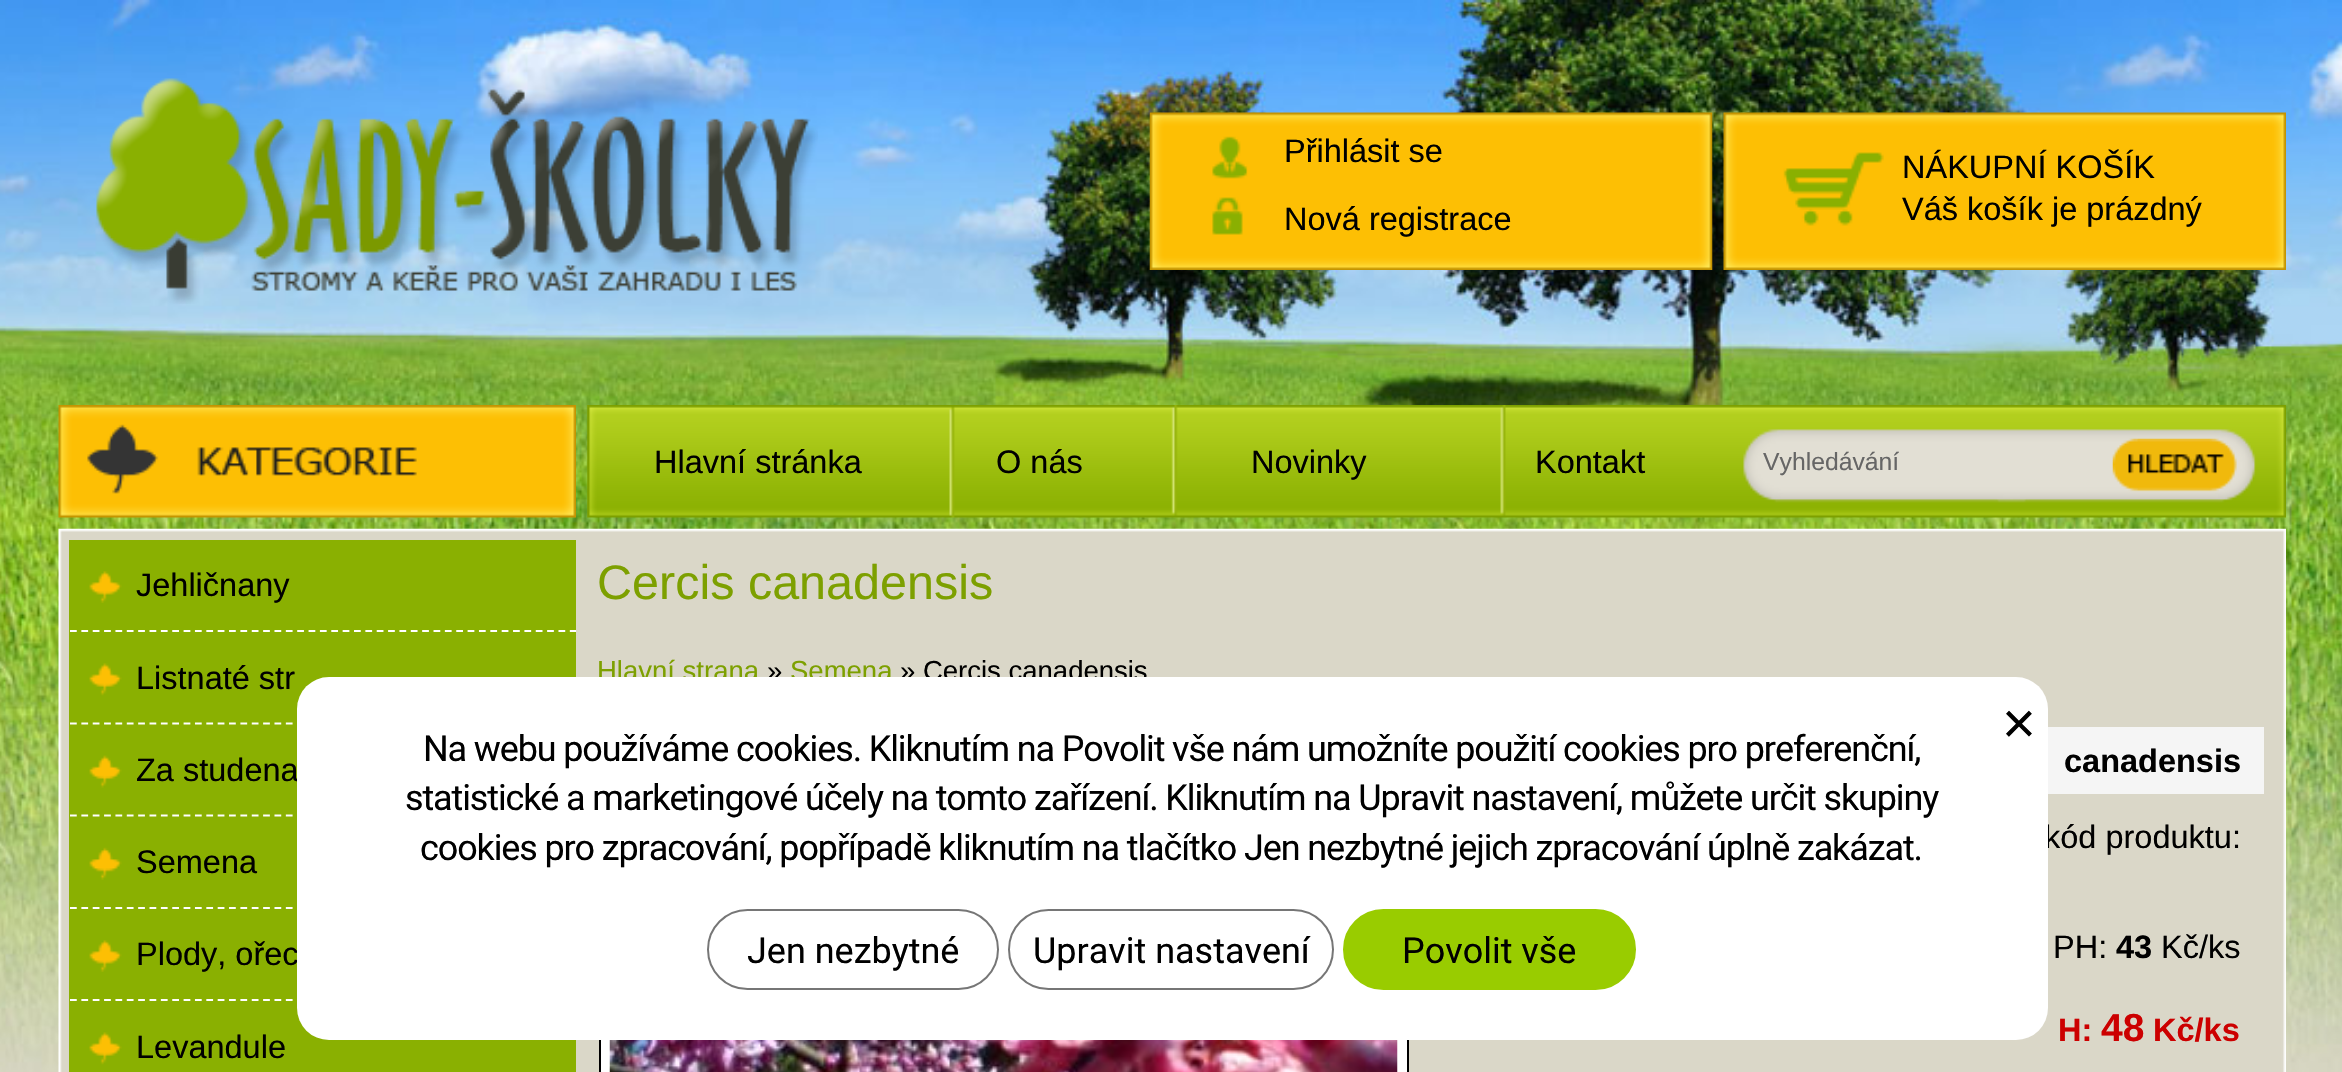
void draw(SkCanvas* c) {
SkPaint p;
p.setAntiAlias(true);
auto F=[&](const char* family, int weight, float size, bool italic = false){SkFontStyle style(weight, SkFontStyle::kNormal_Width,italic ? SkFontStyle::kItalic_Slant : SkFontStyle::kUpright_Slant);SkFont result(fontMgr->matchFamilyStyle(family, style), size);result.setSubpixel(true);return result;};
auto T=[&](const char* s, float x, float y, const SkFont& font){c->drawString(s, x, y, font, p);};
auto L=[&](const char* s, float x, float y, const SkFont& font, const SkPaint& ink, float letter, float word){std::vector<SkGlyphID> glyphs(font.countText(s, strlen(s), SkTextEncoding::kUTF8));std::vector<float> xs(glyphs.size());font.textToGlyphs(s, strlen(s), SkTextEncoding::kUTF8, glyphs);font.getXPos(glyphs, xs, x);float extra = 0;for (size_t i = 0; i < glyphs.size(); i++) {xs[i] += extra;extra += letter + word * (glyphs[i] == font.unicharToGlyph(' '));}c->drawTextBlob(SkTextBlob::MakeFromPosHGlyphs(glyphs, xs, y, font), 0, 0, ink);};
auto R=[&](float x, float y, float w, float h){c->drawRect(SkRect::MakeXYWH(x, y, w, h), p);};
auto Q=[&](float x, float y, float w, float h, float radius){c->drawRoundRect(SkRect::MakeXYWH(x, y, w, h), radius, radius, p);};
auto I=[&](const char* path, float x, float y, float w, float h){auto image = SkImages::DeferredFromEncodedData(SkData::MakeFromFileName(path));c->drawImageRect(image, SkRect::MakeXYWH(x, y, w, h), SkSamplingOptions());};
auto P=[&](const char* data, bool evenOdd = false){SkPath result = *SkParsePath::FromSVGString(data);if (evenOdd) result.setFillType(SkPathFillType::kEvenOdd);return result;};
c->clear(0xffffffff);
I("1.png",0,0,2342,1072);
I("2.png",96,78,722,226);
I("3.png",1149,112,564,158);
auto f1 = F("Liberation Sans",400,32.5);
p.setColor(0xff000000);
T("Přihlásit se",1284,162,f1);
T("Nová registrace",1284,230,f1);
I("4.png",1723,112,563,158);
T("NÁKUPNÍ KOŠÍK",1902,178,f1);
T("Váš košík je prázdný",1902,220,f1);
I("5.png",58,405,518,113);
I("6.png",587,405,1699,113);
T("Hlavní stránka",654,473,f1);
T("O nás",996,473,f1);
T("Novinky",1251,473,f1);
T("Kontakt",1535,473,f1);
I("7.png",1743,429,513,74);
auto f2 = F("Liberation Sans",400,24.75);
p.setColor(0xff666666);
T("Vyhledávání",1763,470,f2);
I("8.png",2112,438,125,54);
I("9.png",58,528,2228,544);
p.setColor(0xff8ab001);
R(69,540,507,532);
I("10.png",89,571,33,32);
p.setStroke(true);
p.setStrokeWidth(2.2);
p.setColor(0xffffffff);
p.setPathEffect(SkDashPathEffect::Make({{6.75f,4.61f}}, 0));
c->drawPath(P("M70 631h506"),p);
p.setPathEffect(nullptr);
p.setStroke(false);
p.setColor(0xff000000);
T("Jehličnany",136,596,f1);
I("11.png",89,663,33,33);
p.setStroke(true);
p.setColor(0xffffffff);
p.setPathEffect(SkDashPathEffect::Make({{6.75f,4.61f}}, 0));
c->drawPath(P("M70 723.5h506"),p);
p.setPathEffect(nullptr);
p.setStroke(false);
p.setColor(0xff000000);
T("Listnaté str",136,689,f1);
I("12.png",89,755,33,33);
p.setStroke(true);
p.setColor(0xffffffff);
p.setPathEffect(SkDashPathEffect::Make({{6.75f,4.61f}}, 0));
c->drawPath(P("M70 815.5h506"),p);
p.setPathEffect(nullptr);
p.setStroke(false);
p.setColor(0xff000000);
T("Za studena",136,781,f1);
I("13.png",89,847,33,33);
p.setStroke(true);
p.setColor(0xffffffff);
p.setPathEffect(SkDashPathEffect::Make({{6.75f,4.61f}}, 0));
c->drawPath(P("M70 908h506"),p);
p.setPathEffect(nullptr);
p.setStroke(false);
p.setColor(0xff000000);
T("Semena",136,873,f1);
I("14.png",89,940,33,32);
p.setStroke(true);
p.setColor(0xffffffff);
p.setPathEffect(SkDashPathEffect::Make({{6.75f,4.61f}}, 0));
c->drawPath(P("M70 1000h506"),p);
p.setPathEffect(nullptr);
p.setStroke(false);
p.setColor(0xff000000);
T("Plody, ořec",136,965,f1);
I("11.png",89,1032,33,33);
T("Levandule",136,1058,f1);
auto f3 = F("Liberation Sans",400,48.5);
p.setColor(0xff7da000);
T("Cercis canadensis",597,599,f3);
auto f4 = F("Liberation Sans",400,27.5);
T("Hlavní strana",597,680,f4);
p.setColor(0xff000000);
T("»",767,680,f4);
p.setColor(0xff7da000);
T("Semena",790,680,f4);
p.setColor(0xff000000);
T("» Cercis canadensis",900,680,f4);
p.setColor(0xffffffff);
R(601,1040,806,32);
p.setStroke(true);
p.setStrokeWidth(2);
p.setColor(0xff000000);
c->drawRect(SkRect::MakeXYWH(600,728,808,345),p);
I("15.png",609,1040,789,32);
p.setStroke(false);
p.setColor(0xfff5f5f5);
R(2048,727,216,67);
auto f5 = F("Liberation Sans",700,32.5);
p.setColor(0xff000000);
T("canadensis",2064,772,f5);
T("kód produktu:",2044,848,f1);
T("PH:",2053,958,f1);
T("43",2116,958,f5);
T("Kč/ks",2161,958,f1);
p.setColor(0xffcc0000);
T("H:",2058,1041,f5);
auto f6 = F("Liberation Sans",700,39);
T("48",2101,1041,f6);
T("Kč/ks",2153,1041,f5);
p.setColor(0xffffffff);
Q(297,677,1751,363,32);
auto f7 = F("Liberation Sans",400,58);
p.setColor(0xff000000);
T("×",2002,743,f7);
auto f8 = F("Roboto",400,36);
L("Na webu používáme cookies. Kliknutím na Povolit vše nám umožníte použití cookies pro preferenční,",423,761,f8,p,-1.12,0);
L("statistické a marketingové účely na tomto zařízení. Kliknutím na Upravit nastavení, můžete určit skupiny",405,810,f8,p,-1.12,0);
L("cookies pro zpracování, popřípadě kliknutím na tlačítko Jen nezbytné jejich zpracování úplně zakázat.",420,860,f8,p,-1.12,0);
p.setStroke(true);
p.setColor(0xff767676);
c->drawRoundRect(SkRect::MakeXYWH(708,910,290,79),39.5,39.5,p);
p.setStroke(false);
p.setColor(0xff000000);
T("Jen nezbytné",747,963,f8);
p.setStroke(true);
p.setColor(0xff767676);
c->drawRoundRect(SkRect::MakeXYWH(1009,910,324,79),39.5,39.5,p);
p.setStroke(false);
p.setColor(0xff000000);
T("Upravit nastavení",1033,963,f8);
p.setColor(0xff99cc00);
c->drawRoundRect(SkRect::MakeXYWH(1344,910,291,79),39.5,39.5,p);
p.setStroke(true);
c->drawRoundRect(SkRect::MakeXYWH(1344,910,291,79),39.5,39.5,p);
p.setStroke(false);
p.setColor(0xff000000);
T("Povolit vše",1402,963,f8);
}
